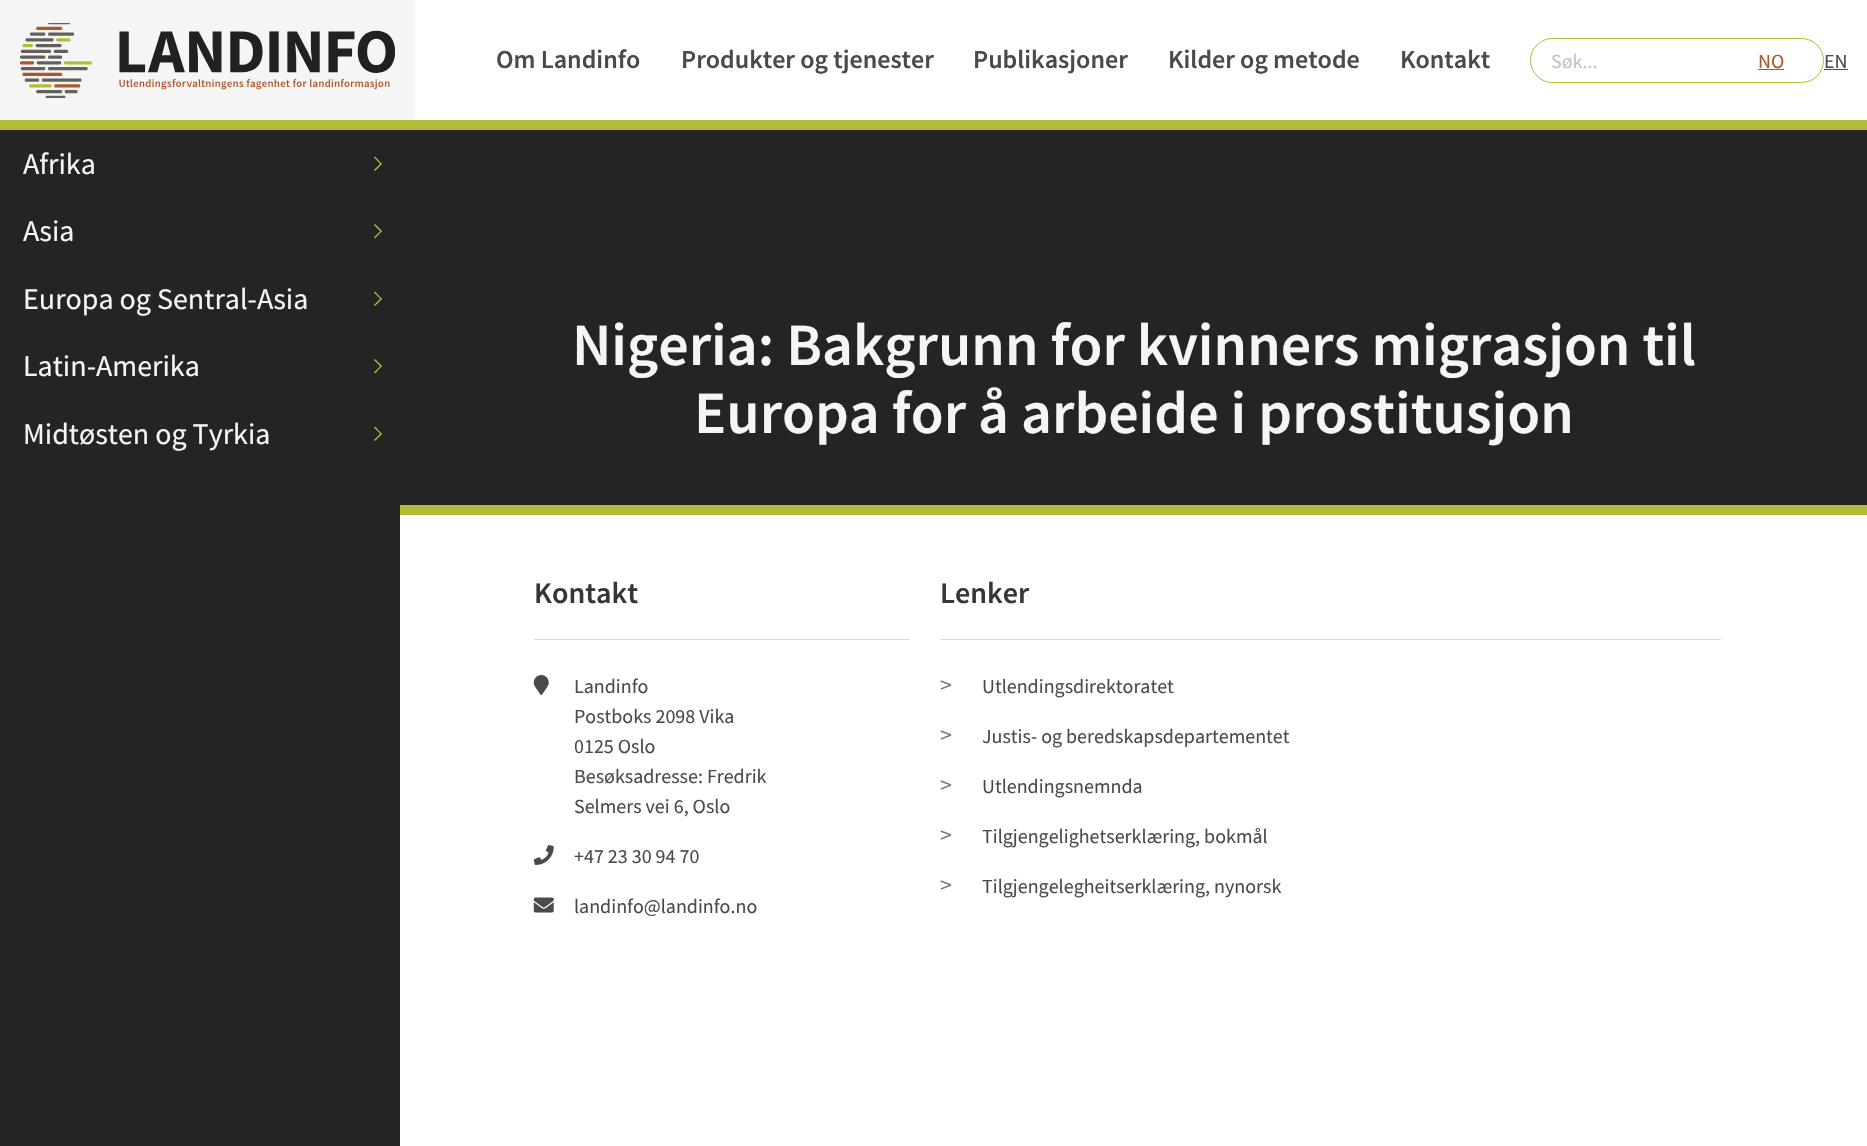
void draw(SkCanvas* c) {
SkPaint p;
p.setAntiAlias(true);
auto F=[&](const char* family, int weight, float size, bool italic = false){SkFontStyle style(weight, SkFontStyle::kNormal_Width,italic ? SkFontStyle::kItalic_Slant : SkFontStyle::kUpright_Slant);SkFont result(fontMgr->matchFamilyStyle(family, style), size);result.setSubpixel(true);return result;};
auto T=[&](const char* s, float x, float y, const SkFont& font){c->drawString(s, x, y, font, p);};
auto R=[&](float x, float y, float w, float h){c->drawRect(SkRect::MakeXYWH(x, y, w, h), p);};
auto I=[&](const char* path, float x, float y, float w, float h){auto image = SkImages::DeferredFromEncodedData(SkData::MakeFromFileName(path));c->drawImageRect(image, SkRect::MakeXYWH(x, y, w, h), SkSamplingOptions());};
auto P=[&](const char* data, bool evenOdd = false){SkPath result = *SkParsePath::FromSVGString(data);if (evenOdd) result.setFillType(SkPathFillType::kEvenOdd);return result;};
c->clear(0xffffffff);
p.setColor(0xffb3bc37);
R(0,120,1867,10);
p.setColor(0xfff5f5f5);
R(0,0,415,120);
I("1.png",20,23,375,75);
auto f1 = F("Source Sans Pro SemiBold",600,26);
p.setColor(0xff4a4a4a);
T("Om Landinfo",496,68,f1);
T("Produkter og tjenester",681,68,f1);
T("Publikasjoner",973,68,f1);
T("Kilder og metode",1168,68,f1);
T("Kontakt",1400,68,f1);
p.setStroke(true);
p.setStrokeWidth(1);
p.setColor(0xffb3bc37);
c->drawRoundRect(SkRect::MakeXYWH(1530.5,38.5,293,44),22,22,p);
auto f2 = F("Source Sans Pro",400,20);
p.setStroke(false);
p.setColor(0xffc3c3c3);
T("Søk...",1551,68,f2);
p.setColor(0xffac582c);
T("NO",1758,68,f2);
R(1758,69,26,1);
p.setColor(0xff4a4a4a);
T("EN",1824,68,f2);
R(1824,69,24,1);
p.setColor(0xff242424);
R(0,130,400,1016);
auto f3 = F("Source Sans Pro",400,30);
p.setColor(0xfff5f5f5);
T("Afrika",23,174,f3);
p.setColor(0xffb3bc37);
c->drawPath(P("M381 164.5l-7-7l1-1l7 7.5z"),p);
c->drawPath(P("M375 171l-1-1l7-7l1 1z"),p);
p.setColor(0xfff5f5f5);
T("Asia",23,241,f3);
p.setColor(0xffb3bc37);
c->drawPath(P("M381 232l-7-7l1-1l7 7z"),p);
c->drawPath(P("M375 238.5l-1-1l7-7l1 .5z"),p);
p.setColor(0xfff5f5f5);
T("Europa og Sentral-Asia",23,309,f3);
p.setColor(0xffb3bc37);
c->drawPath(P("M381 299.5l-7-7l1-1l7 7.5z"),p);
c->drawPath(P("M375 306l-1-1l7-7l1 1z"),p);
p.setColor(0xfff5f5f5);
T("Latin-Amerika",23,376,f3);
p.setColor(0xffb3bc37);
c->drawPath(P("M381 367l-7-7l1-1l7 7z"),p);
c->drawPath(P("M375 373.5l-1-1l7-7l1 .5z"),p);
p.setColor(0xfff5f5f5);
T("Midtøsten og Tyrkia",23,444,f3);
p.setColor(0xffb3bc37);
c->drawPath(P("M381 434.5l-7-7l1-1l7 7.5z"),p);
c->drawPath(P("M375 441l-1-1l7-7l1 1z"),p);
p.setColor(0xff242424);
R(400,130,1467,375);
auto f4 = F("Source Sans Pro SemiBold",600,60);
p.setColor(0xfff5f5f5);
T("Nigeria: Bakgrunn for kvinners migrasjon til",572,365,f4);
T("Europa for å arbeide i prostitusjon",694,433,f4);
p.setColor(0xffb3bc37);
R(400,505,1467,10);
auto f5 = F("Source Sans Pro SemiBold",600,30);
p.setColor(0xff363636);
T("Kontakt",534,603,f5);
p.setColor(0xffdbdbdb);
R(534,639,376,1);
I("2.png",533,675,16,20);
p.setColor(0xff4a4a4a);
T("Landinfo",574,693,f2);
T("Postboks 2098 Vika",574,723,f2);
T("0125 Oslo",574,753,f2);
T("Besøksadresse: Fredrik",574,783,f2);
T("Selmers vei 6, Oslo",574,813,f2);
I("3.png",533,845,21,20);
T("+47 23 30 94 70",574,863,f2);
I("4.png",533,897,21,16);
T("landinfo@landinfo.no",574,913,f2);
p.setColor(0xff363636);
T("Lenker",940,603,f5);
p.setColor(0xffdbdbdb);
R(940,639,781,1);
auto f6 = F("Source Sans Pro",400,24);
p.setColor(0xff7a7a7a);
T(">",940,693,f6);
p.setColor(0xff4a4a4a);
T("Utlendingsdirektoratet",982,693,f2);
p.setColor(0xff7a7a7a);
T(">",940,743,f6);
p.setColor(0xff4a4a4a);
T("Justis- og beredskapsdepartementet",982,743,f2);
p.setColor(0xff7a7a7a);
T(">",940,793,f6);
p.setColor(0xff4a4a4a);
T("Utlendingsnemnda",982,793,f2);
p.setColor(0xff7a7a7a);
T(">",940,843,f6);
p.setColor(0xff4a4a4a);
T("Tilgjengelighetserklæring, bokmål",982,843,f2);
p.setColor(0xff7a7a7a);
T(">",940,893,f6);
p.setColor(0xff4a4a4a);
T("Tilgjengelegheitserklæring, nynorsk",982,893,f2);
}
